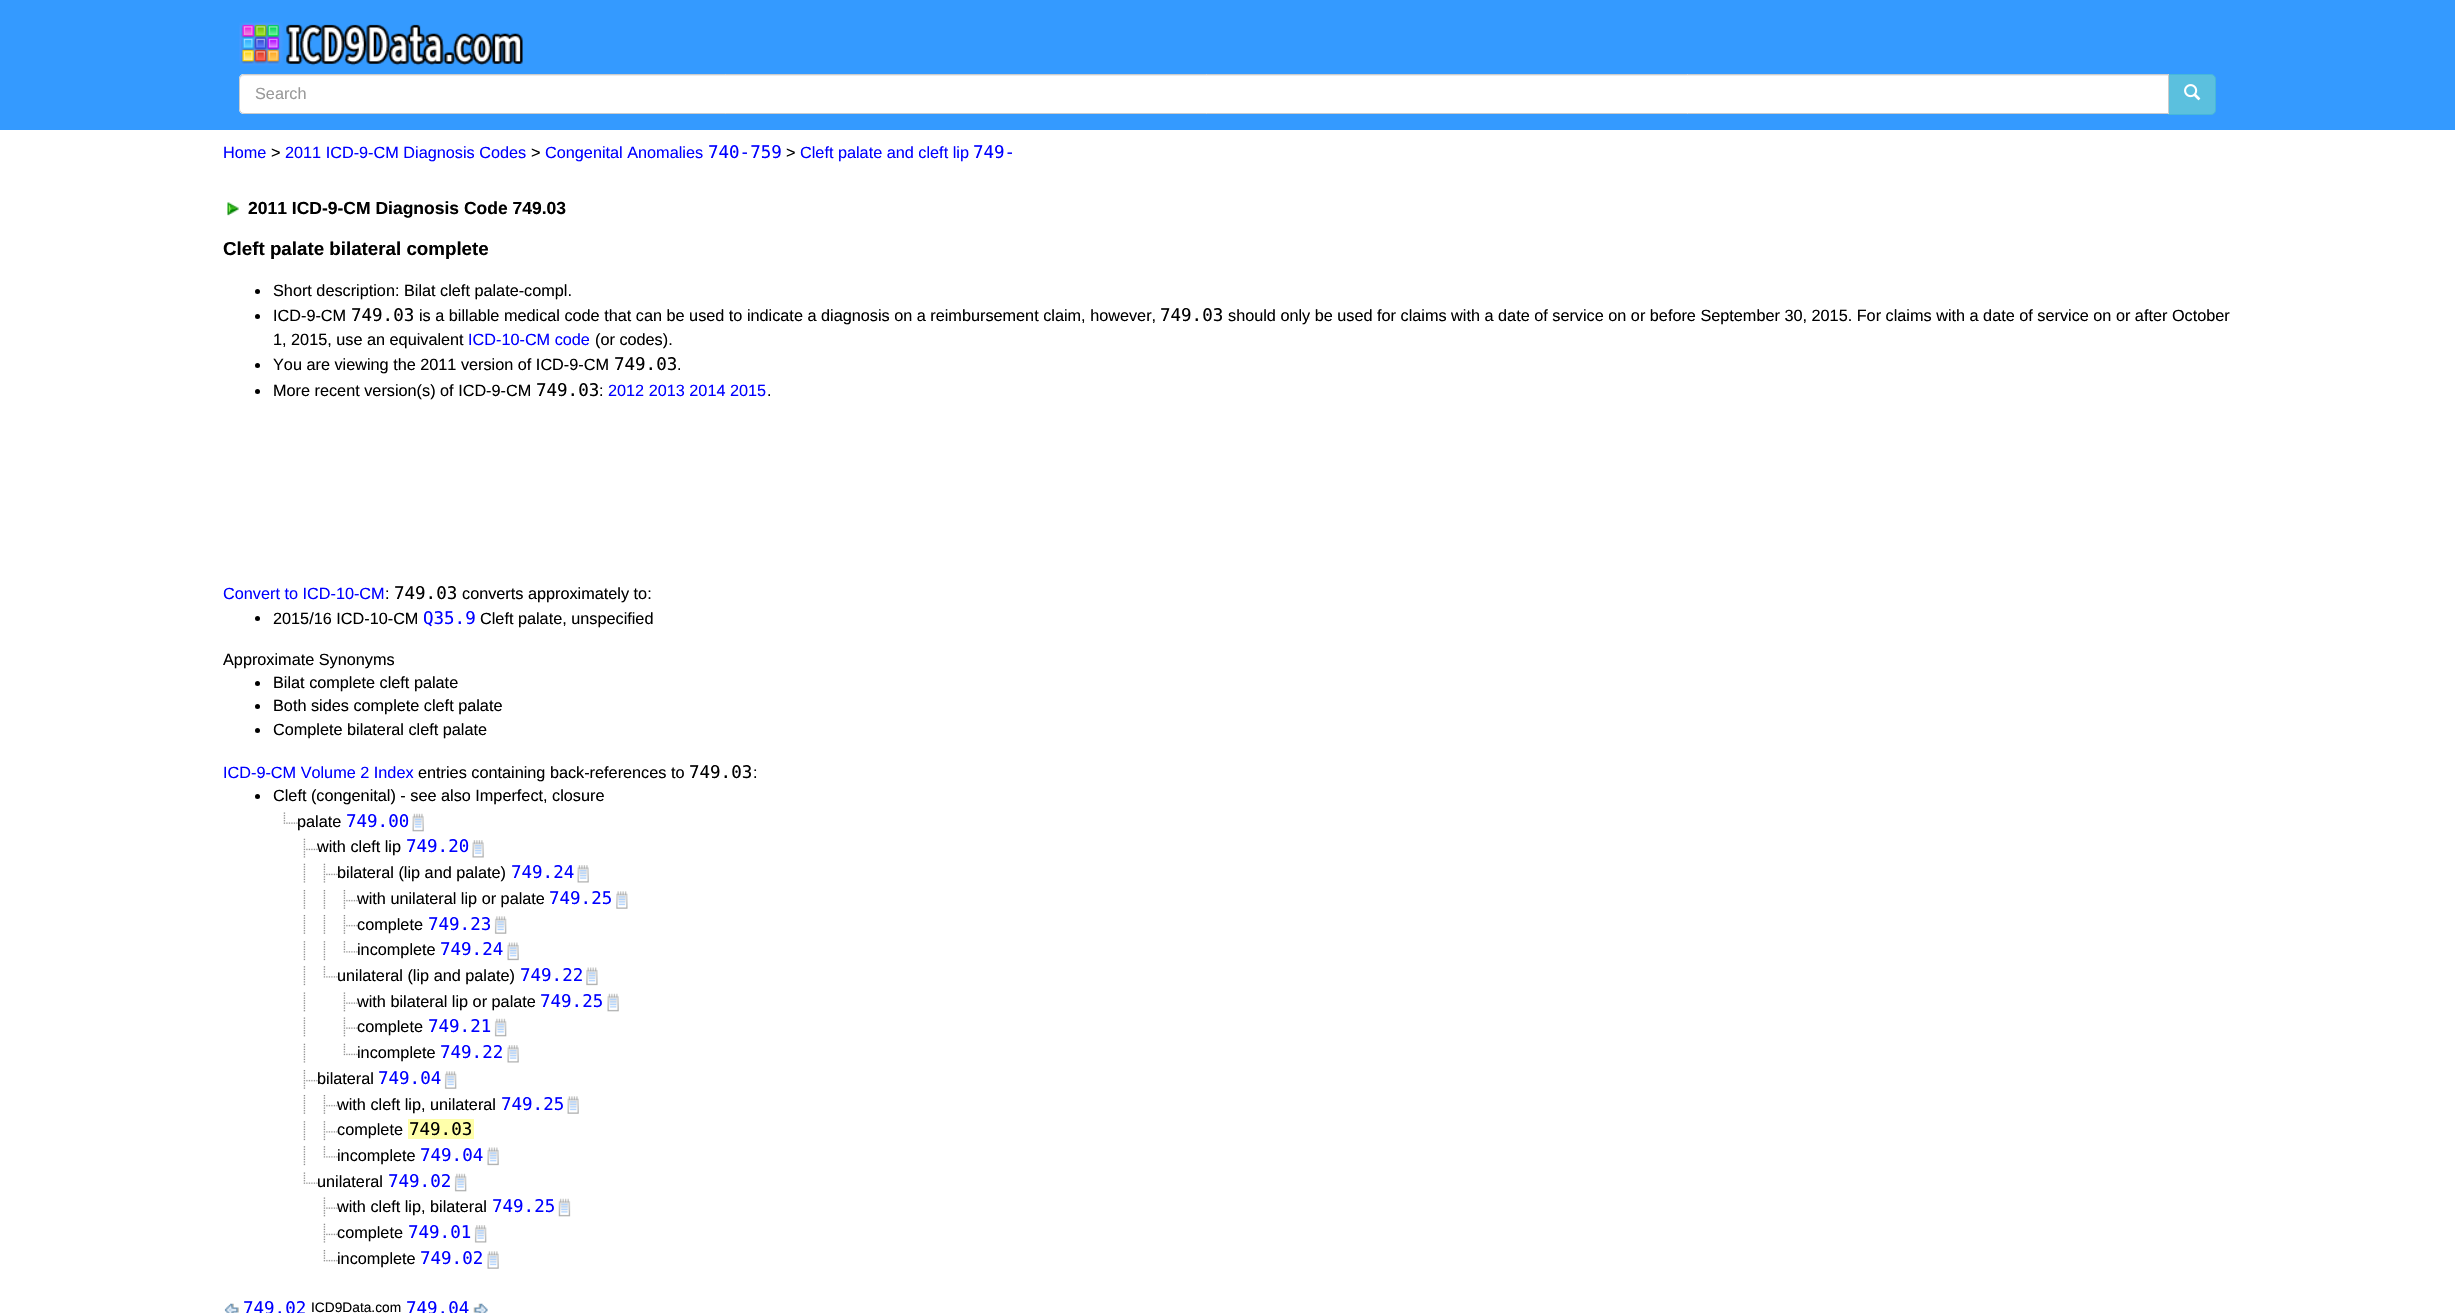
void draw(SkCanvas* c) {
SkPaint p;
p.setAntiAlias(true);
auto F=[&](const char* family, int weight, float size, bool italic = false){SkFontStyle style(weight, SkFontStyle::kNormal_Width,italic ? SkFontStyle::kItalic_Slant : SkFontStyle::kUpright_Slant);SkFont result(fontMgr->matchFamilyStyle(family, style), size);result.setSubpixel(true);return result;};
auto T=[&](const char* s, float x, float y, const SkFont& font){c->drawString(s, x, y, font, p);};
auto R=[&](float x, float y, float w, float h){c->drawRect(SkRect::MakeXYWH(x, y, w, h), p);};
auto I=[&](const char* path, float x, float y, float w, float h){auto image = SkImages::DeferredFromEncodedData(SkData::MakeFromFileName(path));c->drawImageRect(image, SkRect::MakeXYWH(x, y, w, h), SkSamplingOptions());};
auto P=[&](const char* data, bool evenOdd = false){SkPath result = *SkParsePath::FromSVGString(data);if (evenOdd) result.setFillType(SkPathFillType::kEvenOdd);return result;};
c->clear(0xffffffff);
p.setColor(0xff349aff);
R(0,0,2455,130);
I("1.png",239,22,284,44);
p.setColor(0xff5bc0de);
c->drawPath(P("M2168.5 74.5h42.5c2.5 0 4.5 2 4.5 4.5v31c0 2.5-2 4.5-4.5 4.5h-42.5z"),p);
p.setStroke(true);
p.setStrokeWidth(1);
p.setColor(0xff46b8da);
c->drawPath(P("M2168.5 74.5h42.5c2.5 0 4.5 2 4.5 4.5v31c0 2.5-2 4.5-4.5 4.5h-42.5z"),p);
p.setStroke(false);
p.setColor(0xffffffff);
c->drawPath(P("M244 74h1925v40h-1925c-3 0-5-2-5-5v-30c0-3 2-5 5-5z"),p);
p.setColor(0xffececec);
c->drawPath(P("M244 76h1924v-1h-1924c-2 0-4 2-4 4v1c0-2 2-4 4-4z"),p);
p.setStroke(true);
p.setColor(0xffcccccc);
c->drawPath(P("M244 74.5h1924.5v39h-1924.5c-2.5 0-4.5-2-4.5-4.5v-30c0-2.5 2-4.5 4.5-4.5z"),p);
auto f1 = F("Liberation Sans",400,16.25);
p.setStroke(false);
p.setColor(0xff999999);
T("Search",255,99,f1);
I("2.png",2184,84,17,17);
p.setColor(0xff0000ff);
T("Home",223,158,f1);
p.setColor(0xff000000);
T(">",271,158,f1);
p.setColor(0xff0000ff);
T("2011 ICD-9-CM Diagnosis Codes",285,158,f1);
p.setColor(0xff000000);
T(">",531,158,f1);
p.setColor(0xff0000ff);
T("Congenital Anomalies",545,158,f1);
auto f2 = F("DejaVu Sans Mono",400,17.5);
T("740-759",708,158,f2);
p.setColor(0xff000000);
T(">",786,158,f1);
p.setColor(0xff0000ff);
T("Cleft palate and cleft lip",800,158,f1);
T("749-",973,158,f2);
I("3.png",227,202,12,14);
auto f3 = F("Liberation Sans",700,17.5);
p.setColor(0xff000000);
T("2011 ICD-9-CM Diagnosis Code 749.03",248,214,f3);
auto f4 = F("Liberation Sans",700,18.75);
T("Cleft palate bilateral complete",223,255,f4);
c->drawCircle(257.5,291.5,2.5,p);
T("Short description: Bilat cleft palate-compl.",273,296,f1);
c->drawCircle(257.5,316.5,2.5,p);
T("ICD-9-CM",273,321,f1);
T("749.03",351,321,f2);
T("is a billable medical code that can be used to indicate a diagnosis on a reimbursement claim, however,",419,321,f1);
T("749.03",1160,321,f2);
T("should only be used for claims with a date of service on or before September 30, 2015. For claims with a date of service on or after October",1228,321,f1);
T("1, 2015, use an equivalent",273,345,f1);
p.setColor(0xff0000ff);
T("ICD-10-CM code",468,345,f1);
p.setColor(0xff000000);
T("(or codes).",595,345,f1);
c->drawCircle(257.5,365.5,2.5,p);
T("You are viewing the 2011 version of ICD-9-CM",273,370,f1);
T("749.03",614,370,f2);
T(".",677,370,f1);
c->drawCircle(257.5,391.5,2.5,p);
T("More recent version(s) of ICD-9-CM",273,396,f1);
T("749.03",536,396,f2);
T(":",599,396,f1);
p.setColor(0xff0000ff);
T("2012 2013 2014 2015",608,396,f1);
p.setColor(0xff000000);
T(".",767,396,f1);
p.setColor(0xff0000ff);
T("Convert to ICD-10-CM",223,599,f1);
p.setColor(0xff000000);
T(":",385,599,f1);
T("749.03",394,599,f2);
T("converts approximately to:",462,599,f1);
c->drawCircle(257.5,618.5,2.5,p);
T("2015/16 ICD-10-CM",273,624,f1);
p.setColor(0xff0000ff);
T("Q35.9",423,624,f2);
p.setColor(0xff000000);
T("Cleft palate, unspecified",480,624,f1);
T("Approximate Synonyms",223,665,f1);
c->drawCircle(257.5,683.5,2.5,p);
T("Bilat complete cleft palate",273,688,f1);
c->drawCircle(257.5,706.5,2.5,p);
T("Both sides complete cleft palate",273,711,f1);
c->drawCircle(257.5,730.5,2.5,p);
T("Complete bilateral cleft palate",273,735,f1);
p.setColor(0xff0000ff);
T("ICD-9-CM Volume 2 Index",223,778,f1);
p.setColor(0xff000000);
T("entries containing back-references to",418,778,f1);
T("749.03",689,778,f2);
T(":",753,778,f1);
c->drawCircle(257.5,796.5,2.5,p);
T("Cleft (congenital) - see also Imperfect, closure",273,801,f1);
I("4.png",283,812,15,12);
T("palate",297,827,f1);
p.setColor(0xff0000ff);
T("749.00",346,827,f2);
I("5.png",412,813,12,19);
I("6.png",303,838,15,20);
p.setColor(0xff000000);
T("with cleft lip",317,852,f1);
p.setColor(0xff0000ff);
T("749.20",406,852,f2);
I("7.png",472,840,12,18);
I("8.png",303,863,3,20);
I("6.png",323,863,15,20);
p.setColor(0xff000000);
T("bilateral (lip and palate)",337,878,f1);
p.setColor(0xff0000ff);
T("749.24",511,878,f2);
I("9.png",577,865,12,18);
I("10.png",303,890,3,19);
I("10.png",323,890,3,19);
I("11.png",343,890,15,19);
p.setColor(0xff000000);
T("with unilateral lip or palate",357,904,f1);
p.setColor(0xff0000ff);
T("749.25",549,904,f2);
I("12.png",616,891,12,18);
I("10.png",303,915,3,19);
I("10.png",323,915,3,19);
I("11.png",343,915,15,19);
p.setColor(0xff000000);
T("complete",357,930,f1);
p.setColor(0xff0000ff);
T("749.23",428,930,f2);
I("13.png",494,916,13,18);
I("14.png",303,941,3,20);
I("14.png",323,941,3,20);
I("15.png",343,941,15,12);
p.setColor(0xff000000);
T("incomplete",357,955,f1);
p.setColor(0xff0000ff);
T("749.24",440,955,f2);
I("16.png",507,942,12,19);
I("14.png",303,966,3,20);
I("15.png",323,966,15,12);
p.setColor(0xff000000);
T("unilateral (lip and palate)",337,981,f1);
p.setColor(0xff0000ff);
T("749.22",520,981,f2);
I("17.png",586,967,12,19);
I("18.png",303,992,3,20);
I("19.png",343,992,15,20);
p.setColor(0xff000000);
T("with bilateral lip or palate",357,1007,f1);
p.setColor(0xff0000ff);
T("749.25",540,1007,f2);
I("20.png",607,993,12,19);
I("18.png",303,1017,3,20);
I("19.png",343,1017,15,20);
p.setColor(0xff000000);
T("complete",357,1032,f1);
p.setColor(0xff0000ff);
T("749.21",428,1032,f2);
I("21.png",494,1018,13,19);
I("8.png",303,1043,3,20);
I("22.png",343,1043,15,13);
p.setColor(0xff000000);
T("incomplete",357,1058,f1);
p.setColor(0xff0000ff);
T("749.22",440,1058,f2);
I("7.png",507,1045,12,18);
I("11.png",303,1070,15,19);
p.setColor(0xff000000);
T("bilateral",317,1084,f1);
p.setColor(0xff0000ff);
T("749.04",378,1084,f2);
I("13.png",444,1071,13,18);
I("10.png",303,1095,3,19);
I("11.png",323,1095,15,19);
p.setColor(0xff000000);
T("with cleft lip, unilateral",337,1110,f1);
p.setColor(0xff0000ff);
T("749.25",501,1110,f2);
I("23.png",567,1096,12,18);
I("14.png",303,1121,3,20);
I("24.png",323,1121,15,20);
p.setColor(0xff000000);
T("complete",337,1135,f1);
p.setColor(0xffffffaa);
R(408,1119,66,20);
p.setColor(0xff000000);
T("749.03",409,1135,f2);
I("14.png",303,1146,3,20);
I("15.png",323,1146,15,12);
T("incomplete",337,1161,f1);
p.setColor(0xff0000ff);
T("749.04",420,1161,f2);
I("16.png",487,1147,12,19);
I("25.png",303,1172,15,12);
p.setColor(0xff000000);
T("unilateral",317,1187,f1);
p.setColor(0xff0000ff);
T("749.02",388,1187,f2);
I("26.png",454,1173,13,19);
I("19.png",323,1197,15,20);
p.setColor(0xff000000);
T("with cleft lip, bilateral",337,1212,f1);
p.setColor(0xff0000ff);
T("749.25",492,1212,f2);
I("27.png",558,1198,13,19);
I("6.png",323,1223,15,20);
p.setColor(0xff000000);
T("complete",337,1238,f1);
p.setColor(0xff0000ff);
T("749.01",408,1238,f2);
I("28.png",474,1225,13,18);
I("29.png",323,1250,15,12);
p.setColor(0xff000000);
T("incomplete",337,1264,f1);
p.setColor(0xff0000ff);
T("749.02",420,1264,f2);
I("30.png",487,1251,12,18);
I("31.png",224,1303,15,10);
T("749.02",243,1314,f2);
auto f5 = F("Liberation Sans",400,13.75);
p.setColor(0xff000000);
T("ICD9Data.com",311,1312,f5);
p.setColor(0xff0000ff);
T("749.04",406,1314,f2);
I("32.png",473,1303,15,10);
}
